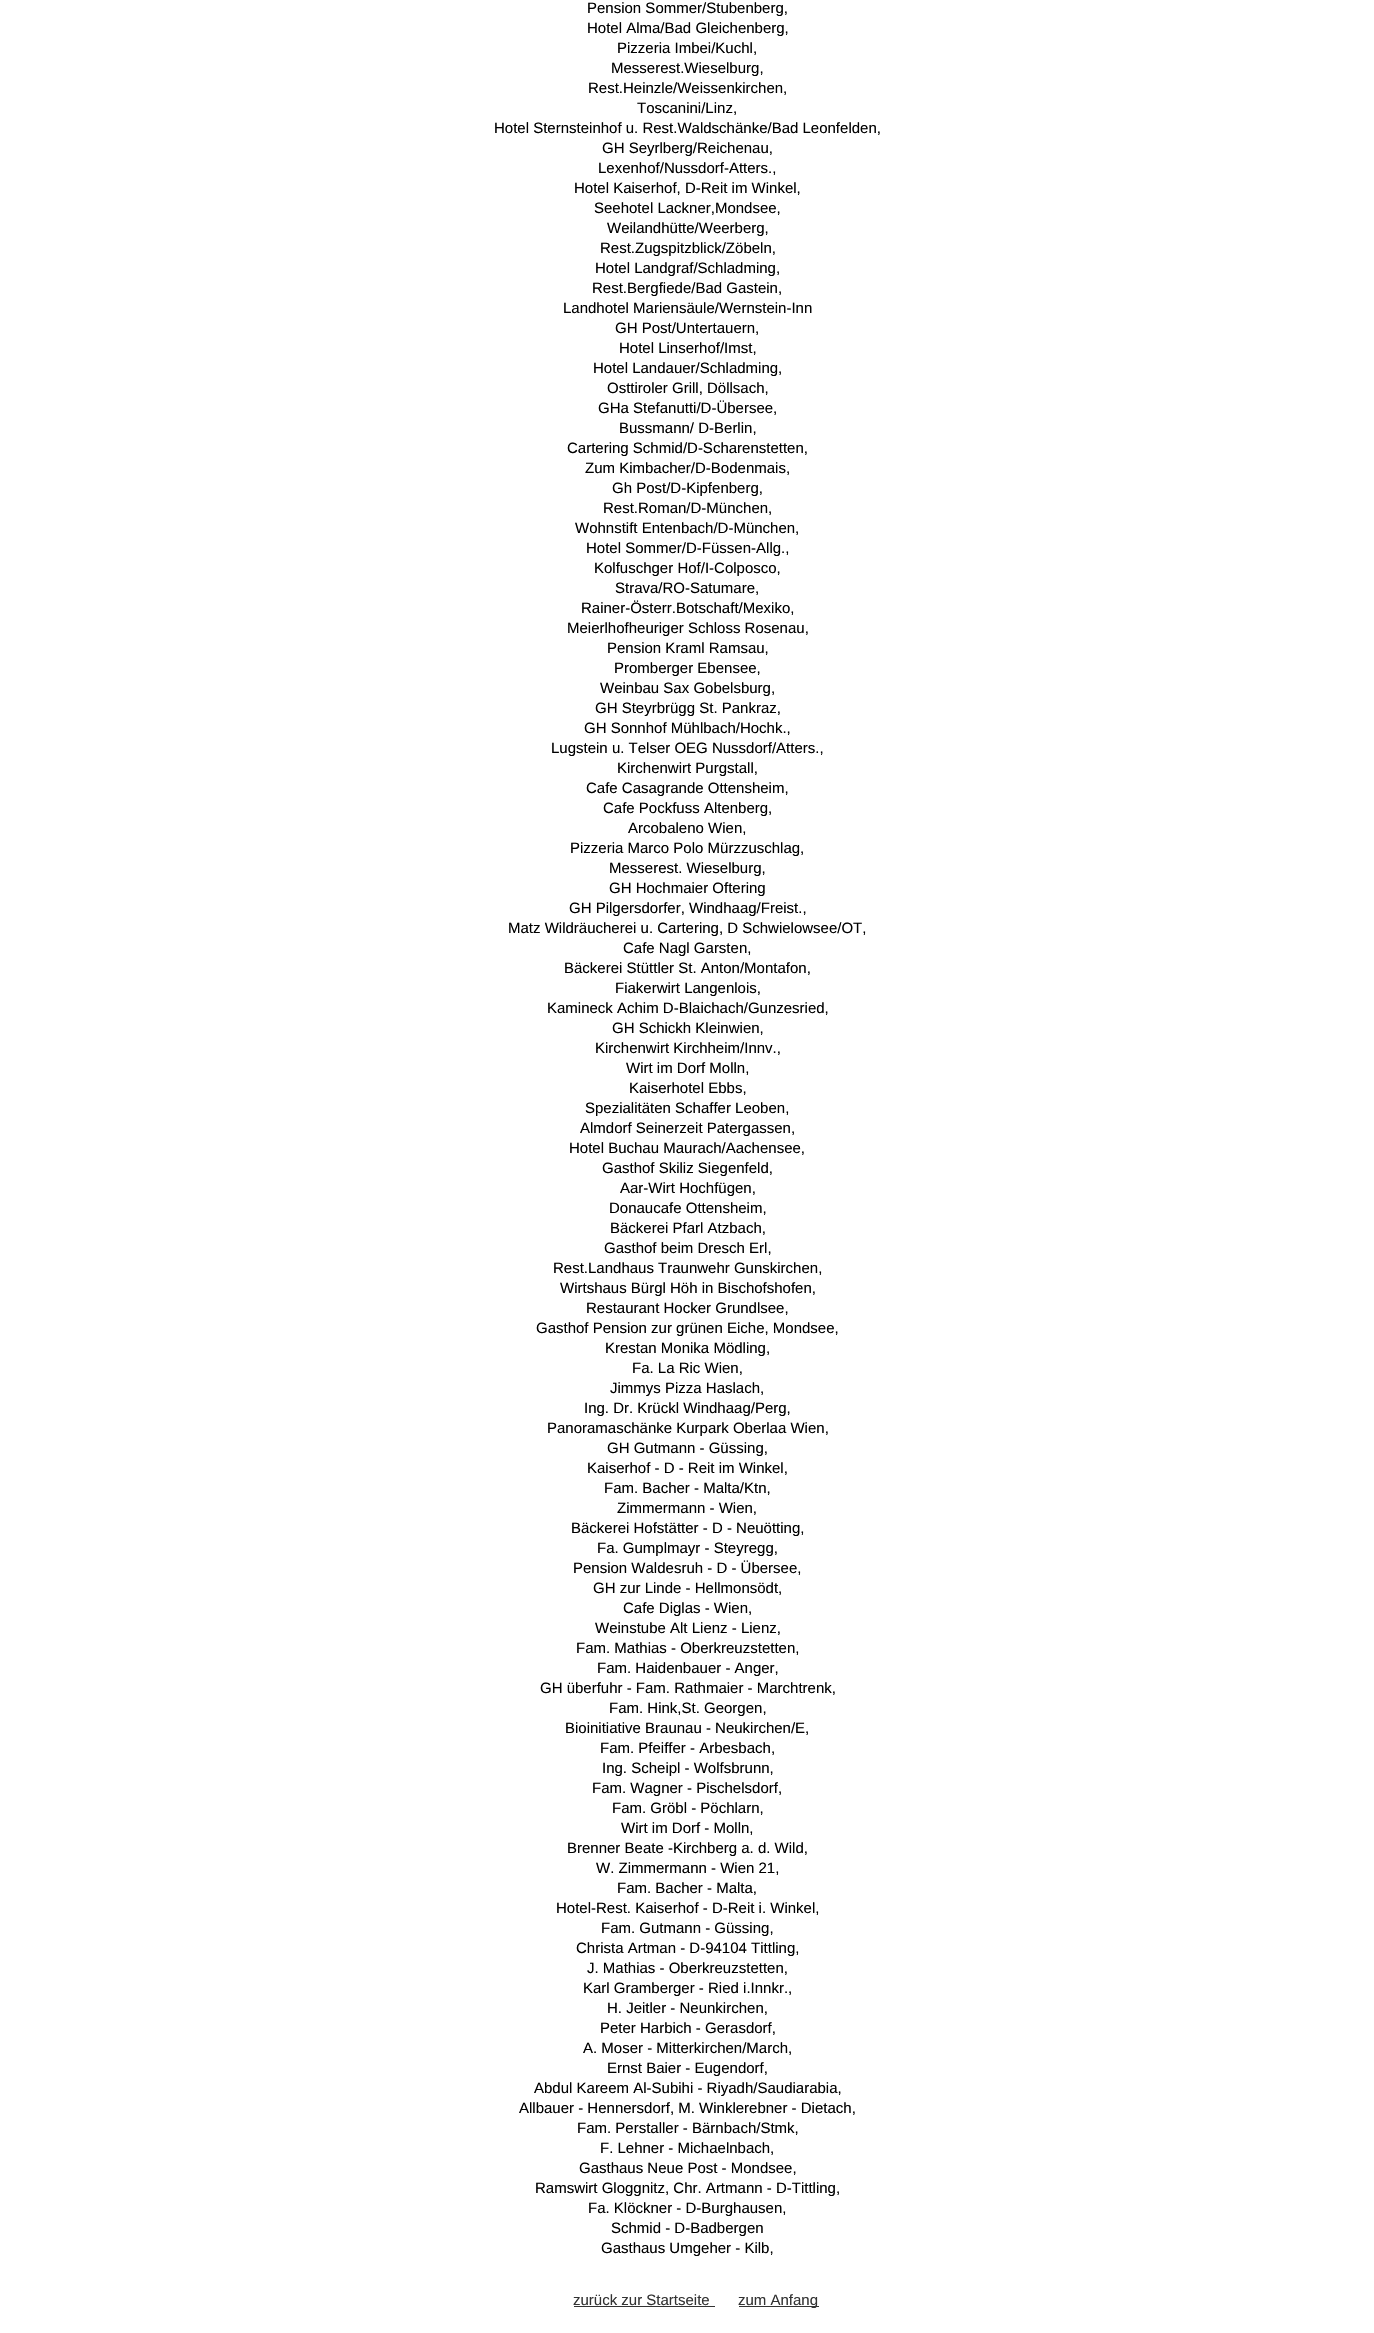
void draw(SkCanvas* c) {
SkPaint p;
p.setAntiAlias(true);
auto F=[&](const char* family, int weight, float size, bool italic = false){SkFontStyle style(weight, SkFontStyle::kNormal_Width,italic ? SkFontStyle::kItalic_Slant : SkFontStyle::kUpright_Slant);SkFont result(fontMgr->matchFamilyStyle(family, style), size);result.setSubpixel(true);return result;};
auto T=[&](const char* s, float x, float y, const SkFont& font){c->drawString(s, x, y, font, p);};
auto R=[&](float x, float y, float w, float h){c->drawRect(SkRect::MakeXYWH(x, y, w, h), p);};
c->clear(0xffffffff);
auto f1 = F("Liberation Sans",400,15);
p.setColor(0xff000000);
T("Pension Sommer/Stubenberg,",587,13,f1);
T("Hotel Alma/Bad Gleichenberg,",587,33,f1);
T("Pizzeria Imbei/Kuchl,",617,53,f1);
T("Messerest.Wieselburg,",611,73,f1);
T("Rest.Heinzle/Weissenkirchen,",588,93,f1);
T("Toscanini/Linz,",637,113,f1);
T("Hotel Sternsteinhof u. Rest.Waldschänke/Bad Leonfelden,",494,133,f1);
T("GH Seyrlberg/Reichenau,",602,153,f1);
T("Lexenhof/Nussdorf-Atters.,",598,173,f1);
T("Hotel Kaiserhof, D-Reit im Winkel,",574,193,f1);
T("Seehotel Lackner,Mondsee,",594,213,f1);
T("Weilandhütte/Weerberg,",607,233,f1);
T("Rest.Zugspitzblick/Zöbeln,",600,253,f1);
T("Hotel Landgraf/Schladming,",595,273,f1);
T("Rest.Bergfiede/Bad Gastein,",592,293,f1);
T("Landhotel Mariensäule/Wernstein-Inn",563,313,f1);
T("GH Post/Untertauern,",615,333,f1);
T("Hotel Linserhof/Imst,",619,353,f1);
T("Hotel Landauer/Schladming,",593,373,f1);
T("Osttiroler Grill, Döllsach,",607,393,f1);
T("GHa Stefanutti/D-Übersee,",598,413,f1);
T("Bussmann/ D-Berlin,",619,433,f1);
T("Cartering Schmid/D-Scharenstetten,",567,453,f1);
T("Zum Kimbacher/D-Bodenmais,",585,473,f1);
T("Gh Post/D-Kipfenberg,",612,493,f1);
T("Rest.Roman/D-München,",603,513,f1);
T("Wohnstift Entenbach/D-München,",575,533,f1);
T("Hotel Sommer/D-Füssen-Allg.,",586,553,f1);
T("Kolfuschger Hof/I-Colposco,",594,573,f1);
T("Strava/RO-Satumare,",615,593,f1);
T("Rainer-Österr.Botschaft/Mexiko,",581,613,f1);
T("Meierlhofheuriger Schloss Rosenau,",567,633,f1);
T("Pension Kraml Ramsau,",607,653,f1);
T("Promberger Ebensee,",614,673,f1);
T("Weinbau Sax Gobelsburg,",600,693,f1);
T("GH Steyrbrügg St. Pankraz,",595,713,f1);
T("GH Sonnhof Mühlbach/Hochk.,",584,733,f1);
T("Lugstein u. Telser OEG Nussdorf/Atters.,",551,753,f1);
T("Kirchenwirt Purgstall,",617,773,f1);
T("Cafe Casagrande Ottensheim,",586,793,f1);
T("Cafe Pockfuss Altenberg,",603,813,f1);
T("Arcobaleno Wien,",628,833,f1);
T("Pizzeria Marco Polo Mürzzuschlag,",570,853,f1);
T("Messerest. Wieselburg,",609,873,f1);
T("GH Hochmaier Oftering",609,893,f1);
T("GH Pilgersdorfer, Windhaag/Freist.,",569,913,f1);
T("Matz Wildräucherei u. Cartering, D Schwielowsee/OT,",508,933,f1);
T("Cafe Nagl Garsten,",623,953,f1);
T("Bäckerei Stüttler St. Anton/Montafon,",564,973,f1);
T("Fiakerwirt Langenlois,",615,993,f1);
T("Kamineck Achim D-Blaichach/Gunzesried,",547,1013,f1);
T("GH Schickh Kleinwien,",612,1033,f1);
T("Kirchenwirt Kirchheim/Innv.,",595,1053,f1);
T("Wirt im Dorf Molln,",626,1073,f1);
T("Kaiserhotel Ebbs,",629,1093,f1);
T("Spezialitäten Schaffer Leoben,",585,1113,f1);
T("Almdorf Seinerzeit Patergassen,",580,1133,f1);
T("Hotel Buchau Maurach/Aachensee,",569,1153,f1);
T("Gasthof Skiliz Siegenfeld,",602,1173,f1);
T("Aar-Wirt Hochfügen,",620,1193,f1);
T("Donaucafe Ottensheim,",609,1213,f1);
T("Bäckerei Pfarl Atzbach,",610,1233,f1);
T("Gasthof beim Dresch Erl,",604,1253,f1);
T("Rest.Landhaus Traunwehr Gunskirchen,",553,1273,f1);
T("Wirtshaus Bürgl Höh in Bischofshofen,",560,1293,f1);
T("Restaurant Hocker Grundlsee,",586,1313,f1);
T("Gasthof Pension zur grünen Eiche, Mondsee,",536,1333,f1);
T("Krestan Monika Mödling,",605,1353,f1);
T("Fa. La Ric Wien,",632,1373,f1);
T("Jimmys Pizza Haslach,",610,1393,f1);
T("Ing. Dr. Krückl Windhaag/Perg,",584,1413,f1);
T("Panoramaschänke Kurpark Oberlaa Wien,",547,1433,f1);
T("GH Gutmann - Güssing,",607,1453,f1);
T("Kaiserhof - D - Reit im Winkel,",587,1473,f1);
T("Fam. Bacher - Malta/Ktn,",604,1493,f1);
T("Zimmermann - Wien,",617,1513,f1);
T("Bäckerei Hofstätter - D - Neuötting,",571,1533,f1);
T("Fa. Gumplmayr - Steyregg,",597,1553,f1);
T("Pension Waldesruh - D - Übersee,",573,1573,f1);
T("GH zur Linde - Hellmonsödt,",593,1593,f1);
T("Cafe Diglas - Wien,",623,1613,f1);
T("Weinstube Alt Lienz - Lienz,",595,1633,f1);
T("Fam. Mathias - Oberkreuzstetten,",576,1653,f1);
T("Fam. Haidenbauer - Anger,",597,1673,f1);
T("GH überfuhr - Fam. Rathmaier - Marchtrenk,",540,1693,f1);
T("Fam. Hink,St. Georgen,",609,1713,f1);
T("Bioinitiative Braunau - Neukirchen/E,",565,1733,f1);
T("Fam. Pfeiffer - Arbesbach,",600,1753,f1);
T("Ing. Scheipl - Wolfsbrunn,",602,1773,f1);
T("Fam. Wagner - Pischelsdorf,",592,1793,f1);
T("Fam. Gröbl - Pöchlarn,",612,1813,f1);
T("Wirt im Dorf - Molln,",621,1833,f1);
T("Brenner Beate -Kirchberg a. d. Wild,",567,1853,f1);
T("W. Zimmermann - Wien 21,",596,1873,f1);
T("Fam. Bacher - Malta,",617,1893,f1);
T("Hotel-Rest. Kaiserhof - D-Reit i. Winkel,",556,1913,f1);
T("Fam. Gutmann - Güssing,",601,1933,f1);
T("Christa Artman - D-94104 Tittling,",576,1953,f1);
T("J. Mathias - Oberkreuzstetten,",587,1973,f1);
T("Karl Gramberger - Ried i.Innkr.,",583,1993,f1);
T("H. Jeitler - Neunkirchen,",607,2013,f1);
T("Peter Harbich - Gerasdorf,",600,2033,f1);
T("A. Moser - Mitterkirchen/March,",583,2053,f1);
T("Ernst Baier - Eugendorf,",607,2073,f1);
T("Abdul Kareem Al-Subihi - Riyadh/Saudiarabia,",534,2093,f1);
T("Allbauer - Hennersdorf, M. Winklerebner - Dietach,",519,2113,f1);
T("Fam. Perstaller - Bärnbach/Stmk,",577,2133,f1);
T("F. Lehner - Michaelnbach,",600,2153,f1);
T("Gasthaus Neue Post - Mondsee,",579,2173,f1);
T("Ramswirt Gloggnitz, Chr. Artmann - D-Tittling,",535,2193,f1);
T("Fa. Klöckner - D-Burghausen,",588,2213,f1);
T("Schmid - D-Badbergen",611,2233,f1);
T("Gasthaus Umgeher - Kilb,",601,2253,f1);
p.setColor(0xff333333);
T("zurück zur Startseite",573,2305,f1);
R(574,2306,141,1);
R(739,2306,80,1);
T("zum Anfang",738,2305,f1);
}
